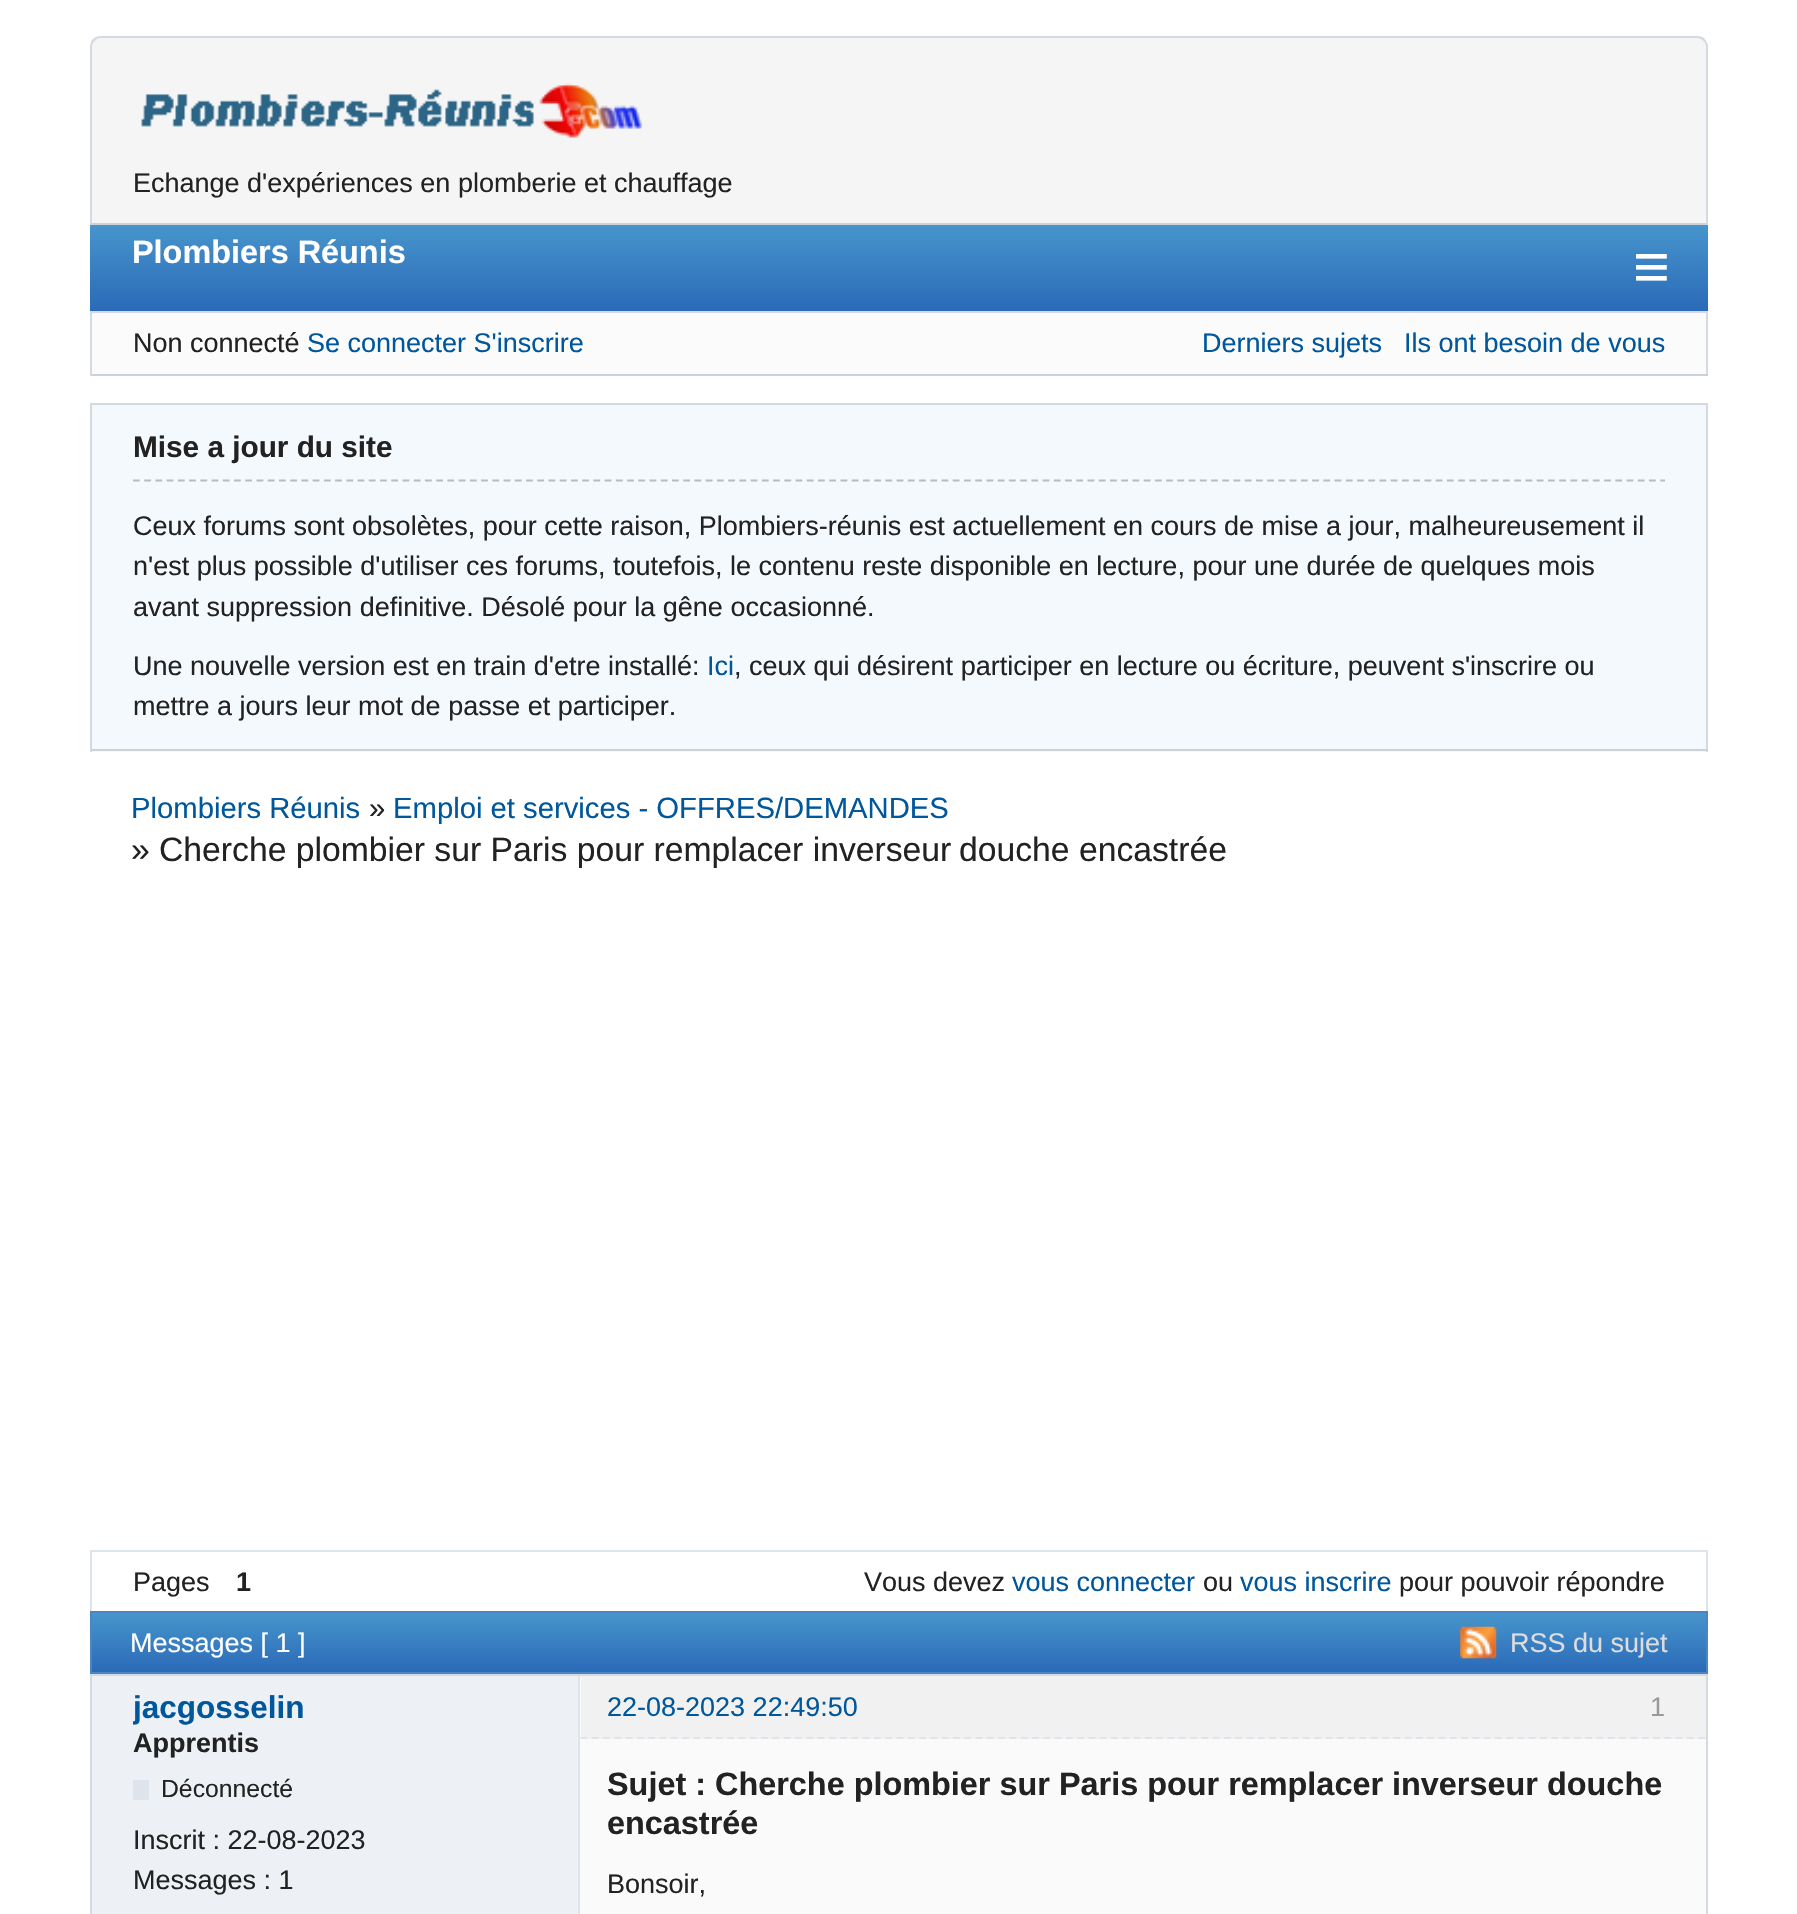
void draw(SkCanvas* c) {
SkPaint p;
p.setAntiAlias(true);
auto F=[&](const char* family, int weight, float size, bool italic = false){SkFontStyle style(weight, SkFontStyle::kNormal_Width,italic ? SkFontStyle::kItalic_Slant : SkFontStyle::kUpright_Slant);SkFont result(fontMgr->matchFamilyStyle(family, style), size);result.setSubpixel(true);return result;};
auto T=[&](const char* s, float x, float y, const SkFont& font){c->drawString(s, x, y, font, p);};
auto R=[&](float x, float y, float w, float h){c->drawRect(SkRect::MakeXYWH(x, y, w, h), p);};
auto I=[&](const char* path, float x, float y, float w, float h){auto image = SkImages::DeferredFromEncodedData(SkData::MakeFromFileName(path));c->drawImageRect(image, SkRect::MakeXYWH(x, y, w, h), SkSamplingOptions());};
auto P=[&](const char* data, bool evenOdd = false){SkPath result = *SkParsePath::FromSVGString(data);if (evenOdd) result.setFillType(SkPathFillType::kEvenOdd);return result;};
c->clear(0xffffffff);
p.setColor(0xfff5f5f5);
c->drawPath(P("M101 36h1596c6 0 11 5 11 11v178h-1618v-178c0-6 5-11 11-11z"),p);
p.setColor(0xffd3dae1);
c->drawPath(P("M101 36c-3 0-6 1-8 3l2 2c1-2 3-3 6-3h1596c2 0 5 1 6 3l2-2c-2-2-5-3-8-3z"),p);
c->drawPath(P("M1708 45v180l-2-2v-176c0-3-1-5-3-6l2-2c1 2 2 4 3 6z"),p);
p.setColor(0xffcbd1d8);
c->drawPath(P("M1708 225l-2-2h-1614l-2 2z"),p);
p.setColor(0xffd3dae1);
c->drawPath(P("M90 225l2-2v-176c0-3 1-5 3-6l-2-2c-2 2-3 5-3 8z"),p);
I("1.png",141,83,501,55);
auto f1 = F("Liberation Sans",400,27);
p.setColor(0xff222222);
T("Echange d'expériences en plomberie et chauffage",133,192,f1);
{
const SkColor colors[] = {0xff2a6ab8,0xff4795cc};
const float stops[] = {0,1};
const SkPoint ends[] = {{899,311}, {899,225}};
p.setShader(SkGradientShader::MakeLinear(ends, colors, stops, 2, SkTileMode::kClamp));
p.setAlpha(255);
}
R(90,225,1618,86);
auto f2 = F("Liberation Sans",700,32.4);
p.setShader(nullptr);
p.setColor(0xffffffff);
T("Plombiers Réunis",132,263,f2);
auto f3 = F("Liberation Sans",400,63);
T("≡",1633,288,f3);
p.setColor(0xfffbfbfb);
R(92,313,1614,61);
p.setColor(0xffd3dae1);
R(90,311,1618,2);
R(1706,311,2,65);
p.setColor(0xffcbd1d8);
R(90,374,1618,2);
p.setColor(0xffd3dae1);
R(90,311,2,65);
p.setColor(0xff222222);
T("Non connecté",133,352,f1);
p.setColor(0xff00579c);
T("Se connecter S'inscrire",307,352,f1);
T("Derniers sujets",1202,352,f1);
T("Ils ont besoin de vous",1404,352,f1);
p.setColor(0xfff4f9fd);
R(92,405,1614,347);
p.setColor(0xffd3dae1);
R(90,403,1618,2);
R(1706,403,2,349);
p.setColor(0xffcbd1d8);
R(90,749,1618,2);
p.setColor(0xffd3dae1);
R(90,403,2,349);
p.setStroke(true);
p.setStrokeWidth(2.2);
p.setColor(0xffbbbbbb);
p.setPathEffect(SkDashPathEffect::Make({{6.75f,4.48f}}, 0));
c->drawPath(P("M133 480.5h1532"),p);
p.setPathEffect(nullptr);
auto f4 = F("Liberation Sans",700,29.75);
p.setStroke(false);
p.setColor(0xff222222);
T("Mise a jour du site",133,457,f4);
T("Ceux forums sont obsolètes, pour cette raison, Plombiers-réunis est actuellement en cours de mise a jour, malheureusement il",133,535,f1);
T("n'est plus possible d'utiliser ces forums, toutefois, le contenu reste disponible en lecture, pour une durée de quelques mois",133,575,f1);
T("avant suppression definitive. Désolé pour la gêne occasionné.",133,616,f1);
T("Une nouvelle version est en train d'etre installé:",133,675,f1);
p.setColor(0xff00579c);
T("Ici",707,675,f1);
p.setColor(0xff222222);
T(", ceux qui désirent participer en lecture ou écriture, peuvent s'inscrire ou",734,675,f1);
T("mettre a jours leur mot de passe et participer.",133,715,f1);
auto f5 = F("Liberation Sans",400,29.25);
p.setColor(0xff00579c);
T("Plombiers Réunis",131,818,f5);
p.setColor(0xff222222);
T("»",369,818,f5);
p.setColor(0xff00579c);
T("Emploi et services - OFFRES/DEMANDES",393,818,f5);
auto f6 = F("Liberation Sans",400,33.7);
p.setColor(0xff222222);
T("»",131,861,f6);
T("Cherche plombier sur Paris pour remplacer inverseur",159,861,f6);
T("douche encastrée",959,861,f6);
p.setColor(0xffdde4eb);
R(90,1550,1618,2);
R(1706,1550,2,61);
R(90,1550,2,61);
p.setColor(0xff222222);
T("Pages",133,1591,f1);
auto f7 = F("Liberation Sans",700,27);
T("1",236,1591,f7);
T("Vous devez",864,1591,f1);
p.setColor(0xff00579c);
T("vous connecter",1012,1591,f1);
p.setColor(0xff222222);
T("ou",1203,1591,f1);
p.setColor(0xff00579c);
T("vous inscrire",1240,1591,f1);
p.setColor(0xff222222);
T("pour pouvoir répondre",1399,1591,f1);
{
const SkColor colors[] = {0xff2a6ab8,0xff4795cc};
const float stops[] = {0,1};
const SkPoint ends[] = {{899,1672}, {899,1613}};
p.setShader(SkGradientShader::MakeLinear(ends, colors, stops, 2, SkTileMode::kClamp));
p.setAlpha(255);
}
R(92,1613,1614,59);
p.setStroke(true);
p.setStrokeWidth(2);
p.setShader(nullptr);
p.setColor(0xff4a86c1);
c->drawRect(SkRect::MakeXYWH(91,1612,1616,61),p);
p.setStroke(false);
p.setColor(0xffffffff);
T("Messages [ 1 ]",130,1652,f1);
I("2.png",1460,1626,37,33);
p.setColor(0xffdddddd);
T("RSS du sujet",1510,1652,f1);
p.setColor(0xffd3dae1);
R(90,1674,1618,2);
R(1706,1674,2,240);
R(90,1674,2,240);
p.setColor(0xffedf1f5);
R(92,1676,486,238);
p.setColor(0xfffafafa);
R(580,1676,1126,238);
p.setColor(0xffdde4eb);
R(578,1676,2,238);
p.setColor(0xfff1f1f1);
R(581,1676,1125,63);
p.setStroke(true);
p.setStrokeWidth(2.2);
p.setColor(0xffdde4eb);
p.setPathEffect(SkDashPathEffect::Make({{6.75f,4.54f}}, 0));
c->drawPath(P("M580.5 1738h1125"),p);
p.setPathEffect(nullptr);
c->save();
c->clipRect(SkRect::MakeXYWH(133,1688,418,40));
auto f8 = F("Liberation Sans",700,31.5);
p.setStroke(false);
p.setColor(0xff00579c);
T("jacgosselin",133,1718,f8);
c->restore();
T("22-08-2023 22:49:50",607,1716,f1);
p.setColor(0xff999999);
T("1",1650,1716,f1);
p.setColor(0xff222222);
T("Apprentis",133,1752,f7);
p.setColor(0xffdde4eb);
R(133,1780,16,20);
auto f9 = F("Liberation Sans",400,24.75);
p.setColor(0xff222222);
T("Déconnecté",161,1797,f9);
T("Inscrit : 22-08-2023",133,1849,f1);
T("Messages : 1",133,1889,f1);
T("Sujet : Cherche plombier sur Paris pour remplacer inverseur",607,1795,f2);
T("douche",1547,1795,f2);
T("encastrée",607,1834,f2);
T("Bonsoir,",607,1893,f1);
}
